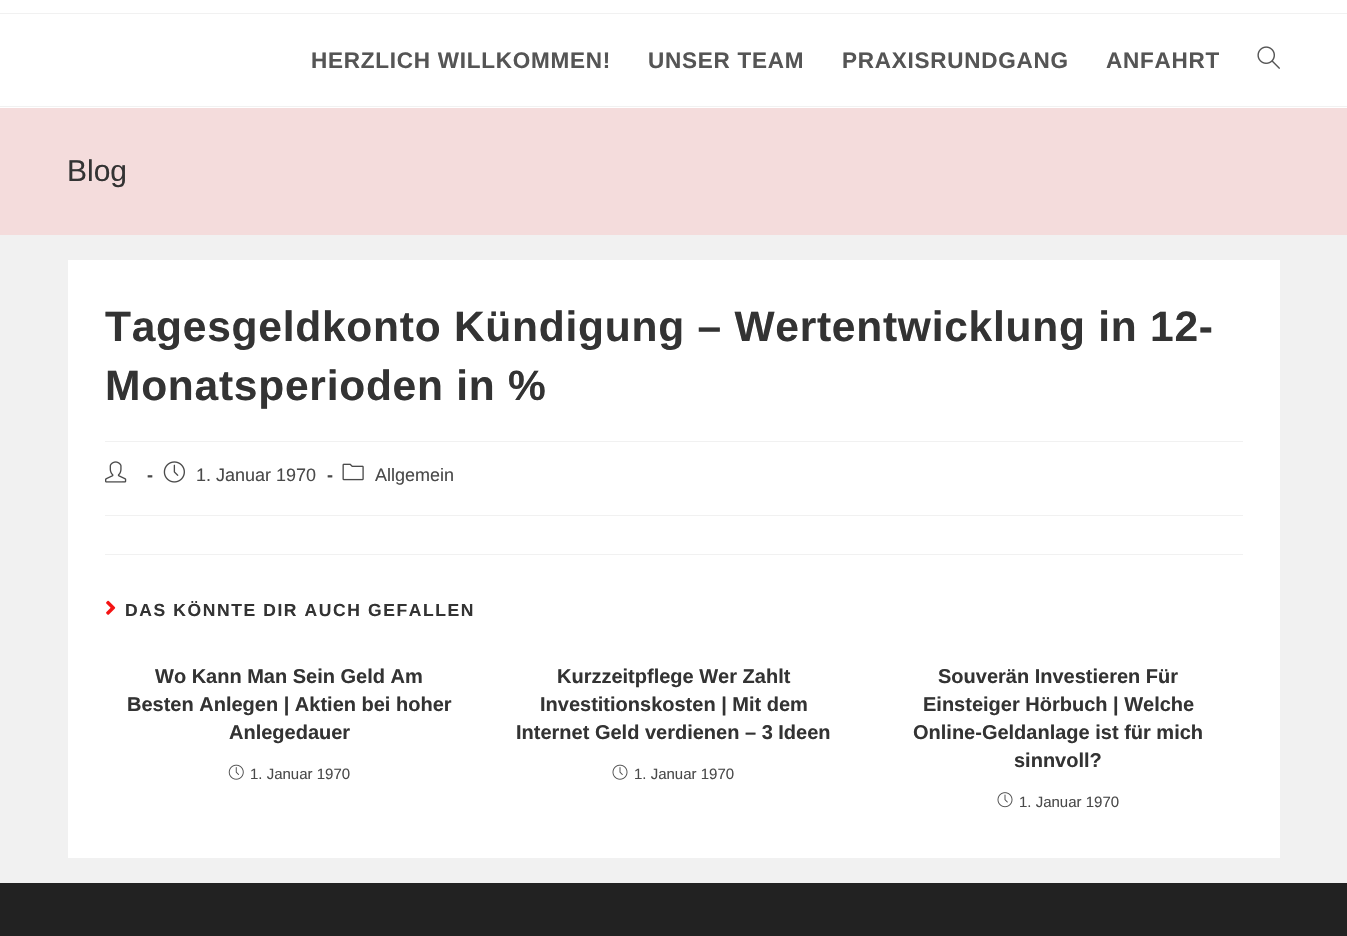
void draw(SkCanvas* c) {
SkPaint p;
p.setAntiAlias(true);
auto F=[&](const char* family, int weight, float size, bool italic = false){SkFontStyle style(weight, SkFontStyle::kNormal_Width,italic ? SkFontStyle::kItalic_Slant : SkFontStyle::kUpright_Slant);SkFont result(fontMgr->matchFamilyStyle(family, style), size);result.setSubpixel(true);return result;};
auto T=[&](const char* s, float x, float y, const SkFont& font){c->drawString(s, x, y, font, p);};
auto L=[&](const char* s, float x, float y, const SkFont& font, const SkPaint& ink, float letter, float word){std::vector<SkGlyphID> glyphs(font.countText(s, strlen(s), SkTextEncoding::kUTF8));std::vector<float> xs(glyphs.size());font.textToGlyphs(s, strlen(s), SkTextEncoding::kUTF8, glyphs);font.getXPos(glyphs, xs, x);float extra = 0;for (size_t i = 0; i < glyphs.size(); i++) {xs[i] += extra;extra += letter + word * (glyphs[i] == font.unicharToGlyph(' '));}c->drawTextBlob(SkTextBlob::MakeFromPosHGlyphs(glyphs, xs, y, font), 0, 0, ink);};
auto R=[&](float x, float y, float w, float h){c->drawRect(SkRect::MakeXYWH(x, y, w, h), p);};
auto I=[&](const char* path, float x, float y, float w, float h){auto image = SkImages::DeferredFromEncodedData(SkData::MakeFromFileName(path));c->drawImageRect(image, SkRect::MakeXYWH(x, y, w, h), SkSamplingOptions());};
c->clear(0xfff1f1f1);
p.setColor(0xffffffff);
R(0,0,1347,13);
R(0,14,1347,94);
p.setColor(0xfff1f1f1);
R(0,106,1347,1);
auto f1 = F("Liberation Sans",700,22.5);
p.setColor(0xff555555);
L("HERZLICH WILLKOMMEN!",311,68,f1,p,.75,0);
L("UNSER TEAM",648,68,f1,p,.75,0);
L("PRAXISRUNDGANG",842,68,f1,p,.75,0);
L("ANFAHRT",1106,68,f1,p,.75,0);
I("1.png",1257,46,23,23);
p.setColor(0xfff4dcdc);
R(0,108,1347,127);
auto f2 = F("Liberation Sans",400,30);
p.setColor(0xff333333);
T("Blog",67,181,f2);
p.setColor(0xffffffff);
R(68,260,1212,598);
p.setColor(0xfff1f1f1);
R(105,441,1138,1);
auto f3 = F("Liberation Sans",700,42.5);
p.setColor(0xff333333);
L("Tagesgeldkonto Kündigung – Wertentwicklung in 12-",105,341,f3,p,.75,0);
L("Monatsperioden in %",105,400,f3,p,.75,0);
p.setColor(0xfff1f1f1);
R(105,515,1138,1);
I("2.png",105,461,22,22);
auto f4 = F("Liberation Sans",700,18);
p.setColor(0xff4a4a4a);
T("-",147,481,f4);
I("3.png",163,461,22,22);
auto f5 = F("Liberation Sans",400,18);
T("1. Januar 1970",196,481,f5);
T("-",327,481,f4);
I("4.png",342,463,22,18);
T("Allgemein",375,481,f5);
p.setColor(0xfff1f1f1);
R(105,554,1138,1);
I("5.png",106,600,10,15);
auto f6 = F("Liberation Sans",700,17.5);
p.setColor(0xff333333);
L("DAS KÖNNTE DIR AUCH GEFALLEN",125,616,f6,p,1.6,0);
auto f7 = F("Liberation Sans",700,20);
T("Wo Kann Man Sein Geld Am",155,683,f7);
T("Besten Anlegen | Aktien bei hoher",127,711,f7);
T("Anlegedauer",229,739,f7);
I("6.png",228,764,16,16);
auto f8 = F("Liberation Sans",400,15);
p.setColor(0xff4a4a4a);
T("1. Januar 1970",250,779,f8);
p.setColor(0xff333333);
T("Kurzzeitpflege Wer Zahlt",557,683,f7);
T("Investitionskosten | Mit dem",540,711,f7);
T("Internet Geld verdienen – 3 Ideen",516,739,f7);
I("7.png",612,764,16,16);
p.setColor(0xff4a4a4a);
T("1. Januar 1970",634,779,f8);
p.setColor(0xff333333);
T("Souverän Investieren Für",938,683,f7);
T("Einsteiger Hörbuch | Welche",923,711,f7);
T("Online-Geldanlage ist für mich",913,739,f7);
T("sinnvoll?",1014,767,f7);
I("8.png",997,792,16,16);
p.setColor(0xff4a4a4a);
T("1. Januar 1970",1019,807,f8);
p.setColor(0xff222222);
R(0,883,1347,53);
}
